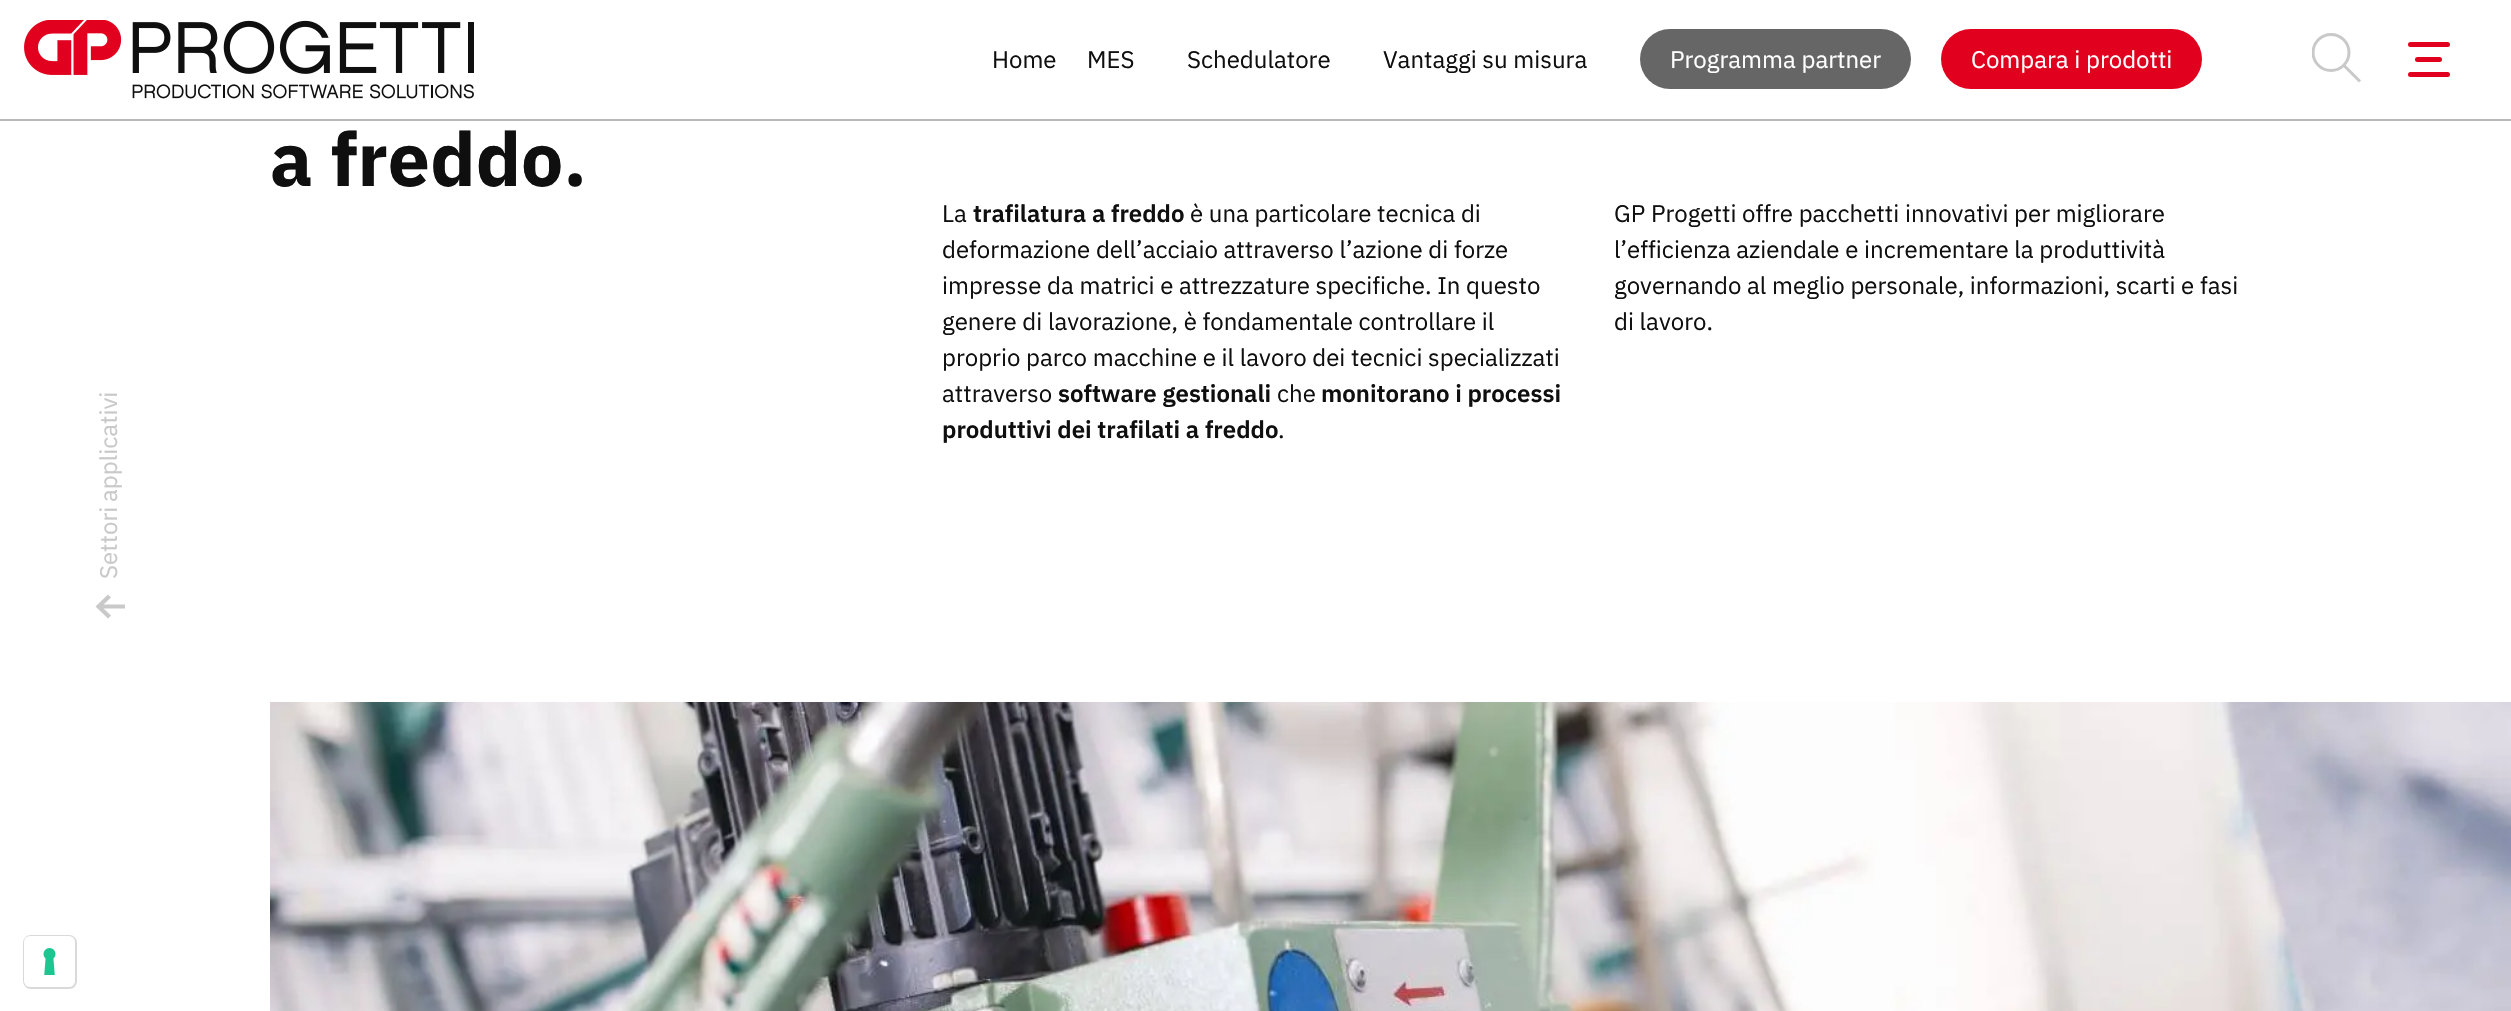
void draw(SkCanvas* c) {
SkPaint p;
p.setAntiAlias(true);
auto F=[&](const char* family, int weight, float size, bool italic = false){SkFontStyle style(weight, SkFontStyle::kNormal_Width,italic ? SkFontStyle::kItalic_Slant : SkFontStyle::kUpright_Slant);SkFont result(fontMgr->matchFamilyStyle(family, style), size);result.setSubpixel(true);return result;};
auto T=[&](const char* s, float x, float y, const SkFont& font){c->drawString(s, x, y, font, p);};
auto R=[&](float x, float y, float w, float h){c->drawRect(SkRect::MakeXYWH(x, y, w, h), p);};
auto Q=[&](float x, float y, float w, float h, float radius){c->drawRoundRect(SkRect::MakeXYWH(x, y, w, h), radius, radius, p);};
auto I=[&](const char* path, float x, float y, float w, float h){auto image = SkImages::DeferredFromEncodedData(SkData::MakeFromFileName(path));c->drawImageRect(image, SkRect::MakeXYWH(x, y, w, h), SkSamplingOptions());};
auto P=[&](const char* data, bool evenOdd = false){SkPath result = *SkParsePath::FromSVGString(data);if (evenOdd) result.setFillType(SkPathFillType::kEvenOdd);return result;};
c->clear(0xffffffff);
p.setColor(0xffb7b9ba);
R(0,119,2511,2);
I("1.png",24,20,450,79);
auto f1 = F("IBM Plex Sans",400,24);
p.setColor(0xff0f0f0f);
T("Home",992,68,f1);
T("MES",1087,68,f1);
T("Schedulatore",1187,68,f1);
T("Vantaggi su misura",1383,68,f1);
p.setColor(0xff666666);
Q(1640,29,271,60,30);
p.setColor(0xffffffff);
T("Programma partner",1670,68,f1);
p.setColor(0xffe1001e);
Q(1941,29,261,60,30);
p.setColor(0xffffffff);
T("Compara i prodotti",1971,68,f1);
c->save();
c->clipRect(SkRect::MakeXYWH(2312,33,49,51));
p.setStroke(true);
p.setStrokeWidth(3);
p.setColor(0xffc9c9c9);
c->drawCircle(2331,52.5,18,p);
c->restore();
c->drawPath(P("M2343.5 65l16.5 16.5"),p);
p.setStroke(false);
p.setColor(0xffe1001e);
Q(2408,42,42,5,2.5);
Q(2415,57,27,5,2.5);
Q(2408,72,42,5,2.5);
auto f2 = F("IBM Plex Sans",700,75);
p.setColor(0xff0f0f0f);
T("a freddo.",270,186,f2);
T("La",942,222,f1);
auto f3 = F("IBM Plex Sans",600,24);
T("trafilatura a freddo",973,222,f3);
T("è una particolare tecnica di",1190,222,f1);
T("deformazione dell’acciaio attraverso l’azione di forze",942,258,f1);
T("impresse da matrici e attrezzature specifiche. In questo",942,294,f1);
T("genere di lavorazione, è fondamentale controllare il",942,330,f1);
T("proprio parco macchine e il lavoro dei tecnici specializzati",942,366,f1);
T("attraverso",942,402,f1);
T("software gestionali",1058,402,f3);
T("che",1277,402,f1);
T("monitorano i processi",1321,402,f3);
T("produttivi dei trafilati a freddo",942,438,f3);
T(".",1278,438,f1);
T("GP Progetti offre pacchetti innovativi per migliorare",1614,222,f1);
T("l’efficienza aziendale e incrementare la produttività",1614,258,f1);
T("governando al meglio personale, informazioni, scarti e fasi",1614,294,f1);
T("di lavoro.",1614,330,f1);
p.setColor(0xffc9c9c9);
c->save();
c->rotate(-90,117,502);
T("applicativi",117,502,f1);
c->restore();
c->save();
c->rotate(-90,117,579);
T("Settori",117,579,f1);
c->restore();
c->drawPath(P("M108 594.5l-12.5 12l12.5 12l3-3l-7.5-7h21.5v-4h-21.5l7.5-7z"),p);
I("2.png",270,702,2241,309);
p.setStroke(true);
p.setStrokeWidth(2);
p.setColor(0xffd9d9d9);
c->drawRoundRect(SkRect::MakeXYWH(24,936,52,52),7,7,p);
p.setStroke(false);
p.setColor(0xffffffff);
Q(24,936,51,51,6);
I("3.png",43,948,13,27);
}
